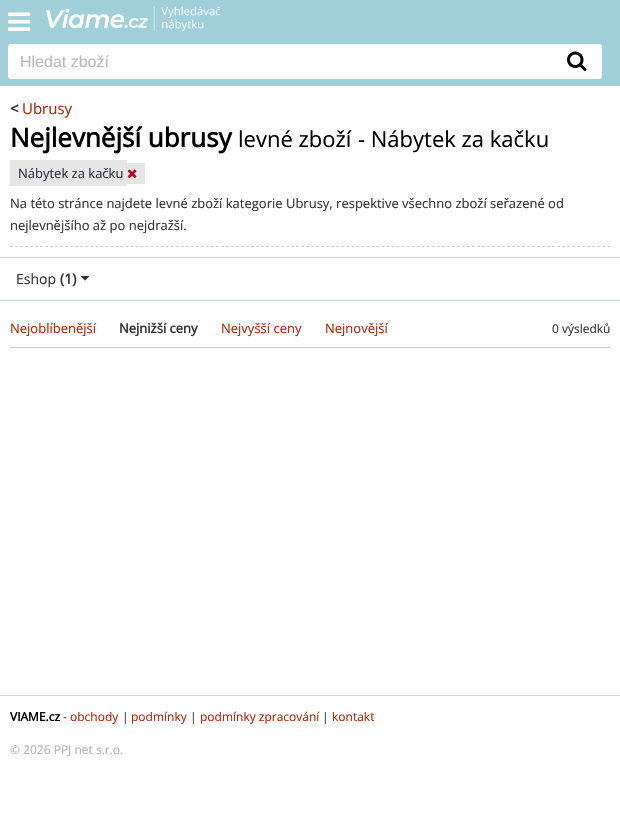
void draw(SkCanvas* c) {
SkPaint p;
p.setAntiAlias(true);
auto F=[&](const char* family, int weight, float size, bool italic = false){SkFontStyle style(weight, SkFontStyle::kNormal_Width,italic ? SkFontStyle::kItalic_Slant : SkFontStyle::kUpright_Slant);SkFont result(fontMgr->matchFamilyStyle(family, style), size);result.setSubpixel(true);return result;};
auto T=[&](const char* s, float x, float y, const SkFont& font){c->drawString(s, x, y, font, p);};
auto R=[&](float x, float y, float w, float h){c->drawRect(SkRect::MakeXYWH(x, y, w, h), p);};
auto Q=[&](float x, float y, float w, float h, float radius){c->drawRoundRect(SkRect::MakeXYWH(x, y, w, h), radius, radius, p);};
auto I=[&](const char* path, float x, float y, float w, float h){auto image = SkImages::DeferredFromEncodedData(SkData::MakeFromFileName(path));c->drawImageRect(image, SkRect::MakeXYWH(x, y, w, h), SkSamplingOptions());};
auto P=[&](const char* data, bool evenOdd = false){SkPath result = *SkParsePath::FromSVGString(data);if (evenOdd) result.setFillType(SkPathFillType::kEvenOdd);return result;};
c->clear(0xffffffff);
p.setColor(0xffa0ced9);
R(0,0,620,86);
I("1.png",8,12,23,19);
I("2.png",46,6,175,25);
p.setColor(0xffffffff);
Q(8,44,594,35,3);
auto f1 = F("Liberation Sans",400,16);
p.setColor(0xffb9b9b9);
T("Hledat zboží",20,67,f1);
p.setColor(0xffffffff);
c->drawPath(P("M552 44h47c1.5 0 3 1.5 3 3v28c0 1.5-1.5 3-3 3h-47z"),p);
I("3.png",567,51,20,20);
auto f2 = F("Open Sans",700,15);
p.setColor(0xff333333);
T("<",10,114,f2);
auto f3 = F("Open Sans",400,15);
p.setColor(0xffb12704);
T("Ubrusy",22,114,f3);
auto f4 = F("Open Sans",700,26);
p.setColor(0xff000000);
T("Nejlevnější ubrusy",10,147,f4);
auto f5 = F("Open Sans",400,22);
T("levné zboží",238,147,f5);
T("- Nábytek za kačku",358,147,f5);
p.setColor(0xffe6e6e6);
R(10,160,117,26);
R(127,163,18,21);
auto f6 = F("Open Sans",400,13);
p.setColor(0xff2e3140);
T("Nábytek za kačku",18,178,f6);
I("4.png",127,169,10,10);
p.setColor(0xff333333);
T("Na této stránce najdete levné zboží kategorie Ubrusy, respektive všechno zboží seřazené od",10,208,f6);
T("nejlevnějšího až po nejdražší.",10,230,f6);
p.setStroke(true);
p.setStrokeWidth(1);
p.setColor(0xffcccccc);
p.setPathEffect(SkDashPathEffect::Make({{3,2.02f}}, 0));
c->drawPath(P("M10 246.5h600"),p);
p.setPathEffect(nullptr);
p.setStroke(false);
p.setColor(0xffc8dae0);
R(0,257,620,1);
R(0,300,620,1);
auto f7 = F("Open Sans",400,14);
p.setColor(0xff333333);
T("Eshop",16,284,f7);
auto f8 = F("Open Sans",700,14);
T("(1)",60,284,f8);
I("5.png",81,276,8,5);
p.setColor(0xffcccccc);
R(10,347,600,1);
p.setColor(0xffb12704);
T("Nejoblíbenější",10,333,f6);
auto f9 = F("Open Sans",700,13);
p.setColor(0xff333333);
T("Nejnižší ceny",119,333,f9);
p.setColor(0xffb12704);
T("Nejvyšší ceny",221,333,f6);
T("Nejnovější",325,333,f6);
auto f10 = F("Open Sans",400,12);
p.setColor(0xff333333);
T("0 výsledků",552,333,f10);
p.setColor(0xffc8dae0);
R(0,695,620,1);
auto f11 = F("Open Sans",700,12);
p.setColor(0xff000000);
T("VIAME.cz",10,721,f11);
p.setColor(0xff333333);
T("-",63,721,f10);
p.setColor(0xffb12704);
T("obchody",70,721,f10);
p.setColor(0xff333333);
T("|",122,721,f10);
p.setColor(0xffb12704);
T("podmínky",131,721,f10);
p.setColor(0xff333333);
T("|",190,721,f10);
p.setColor(0xffb12704);
T("podmínky zpracování",200,721,f10);
p.setColor(0xff333333);
T("|",322,721,f10);
p.setColor(0xffb12704);
T("kontakt",332,721,f10);
p.setColor(0xffb3b3b3);
T("© 2026 PPJ net s.r.o.",10,754,f10);
}
